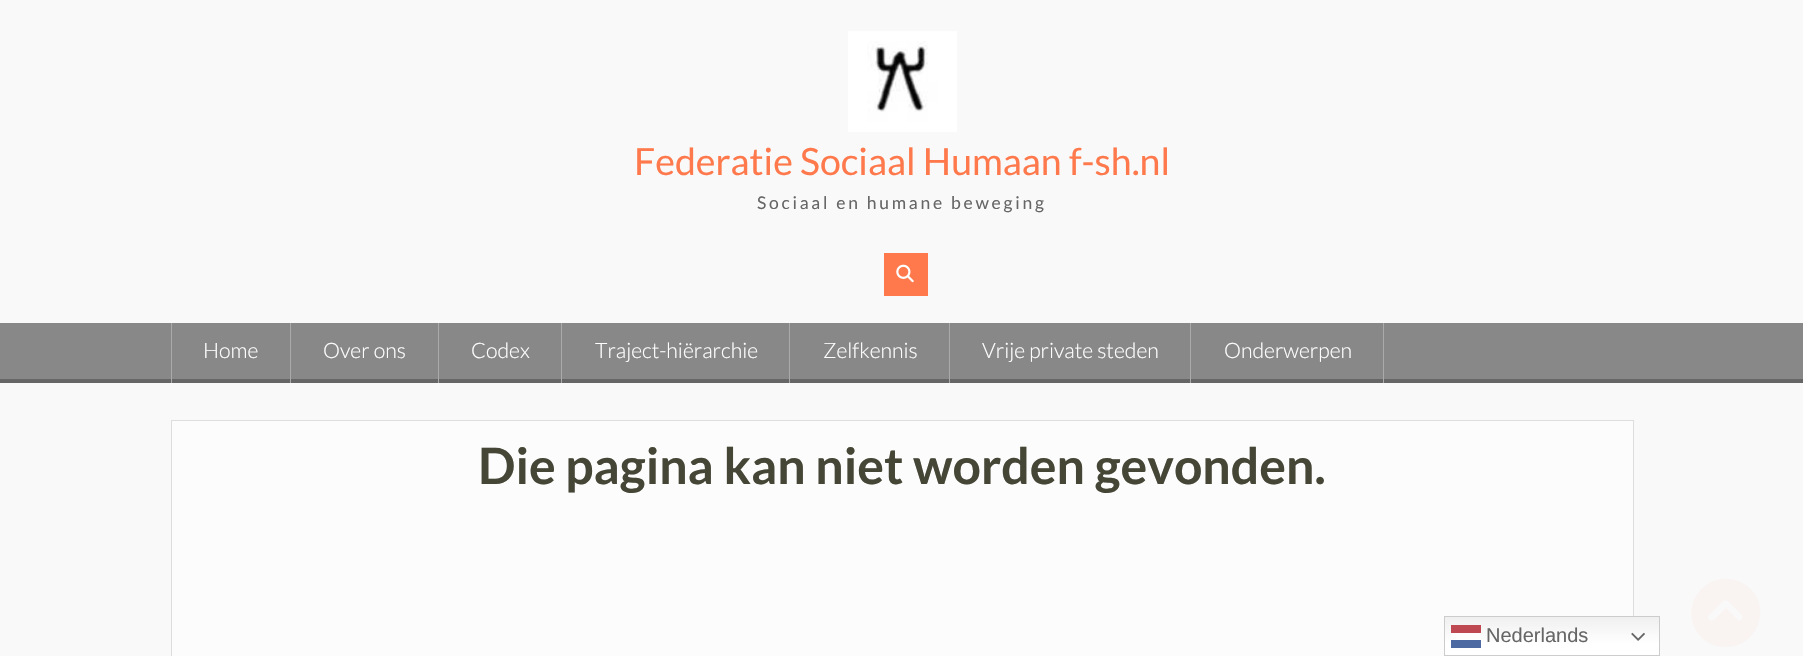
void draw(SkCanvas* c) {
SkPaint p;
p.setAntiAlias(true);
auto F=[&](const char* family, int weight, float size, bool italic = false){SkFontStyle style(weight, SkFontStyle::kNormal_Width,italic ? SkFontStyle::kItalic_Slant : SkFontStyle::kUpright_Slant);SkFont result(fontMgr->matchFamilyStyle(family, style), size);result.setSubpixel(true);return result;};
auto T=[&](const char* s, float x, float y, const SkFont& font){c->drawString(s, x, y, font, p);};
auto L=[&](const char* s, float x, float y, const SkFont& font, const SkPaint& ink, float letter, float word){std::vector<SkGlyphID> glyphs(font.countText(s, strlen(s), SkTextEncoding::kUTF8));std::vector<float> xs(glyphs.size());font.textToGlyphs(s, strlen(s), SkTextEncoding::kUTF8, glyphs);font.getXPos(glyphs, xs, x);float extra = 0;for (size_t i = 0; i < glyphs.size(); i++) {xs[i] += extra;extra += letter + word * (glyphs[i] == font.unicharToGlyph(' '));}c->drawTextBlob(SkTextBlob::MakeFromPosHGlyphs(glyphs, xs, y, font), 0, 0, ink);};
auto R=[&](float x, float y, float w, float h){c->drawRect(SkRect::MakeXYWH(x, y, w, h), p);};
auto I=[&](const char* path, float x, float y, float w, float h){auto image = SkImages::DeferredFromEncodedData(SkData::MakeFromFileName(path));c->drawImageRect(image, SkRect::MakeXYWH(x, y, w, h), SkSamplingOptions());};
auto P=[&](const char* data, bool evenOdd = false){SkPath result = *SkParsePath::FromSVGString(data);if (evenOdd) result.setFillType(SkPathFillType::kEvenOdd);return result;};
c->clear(0xfff9f9f9);
I("1.png",848,31,109,101);
auto f1 = F("Lato",400,37.5);
p.setColor(0xffff794c);
T("Federatie Sociaal Humaan f-sh.nl",634,175,f1);
auto f2 = F("Lato",400,17.5);
p.setColor(0xff666666);
L("Sociaal en humane beweging",757,209,f2,p,2.75,0);
p.setColor(0xffff794c);
R(884,253,44,43);
I("2.png",896,264,18,19);
p.setColor(0xff888888);
R(0,323,1803,56);
p.setColor(0xff666666);
R(0,379,1803,4);
p.setColor(0xffaaaaaa);
R(290,323,1,60);
R(171,323,1,60);
auto f3 = F("Lato",300,21.25);
p.setColor(0xffffffff);
T("Home",203,358,f3);
p.setColor(0xffaaaaaa);
R(438,323,1,60);
p.setColor(0xffffffff);
T("Over ons",323,358,f3);
p.setColor(0xffaaaaaa);
R(561,323,1,60);
p.setColor(0xffffffff);
T("Codex",471,358,f3);
p.setColor(0xffaaaaaa);
R(789,323,1,60);
p.setColor(0xffffffff);
T("Traject-hiërarchie",595,358,f3);
p.setColor(0xffaaaaaa);
R(949,323,1,60);
p.setColor(0xffffffff);
T("Zelfkennis",823,358,f3);
p.setColor(0xffaaaaaa);
R(1190,323,1,60);
p.setColor(0xffffffff);
T("Vrije private steden",982,358,f3);
p.setColor(0xffaaaaaa);
R(1383,323,1,60);
p.setColor(0xffffffff);
T("Onderwerpen",1224,358,f3);
p.setColor(0xfffcfcfc);
c->drawRect(SkRect::MakeXYWH(171.5,420.5,1462,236),p);
p.setStroke(true);
p.setStrokeWidth(1);
p.setColor(0xffdddddd);
c->drawRect(SkRect::MakeXYWH(171.5,420.5,1462,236),p);
auto f4 = F("Lato",700,50);
p.setStroke(false);
p.setColor(0xff464637);
T("Die pagina kan niet worden gevonden.",478,484,f4);
{
const SkColor colors[] = {0xffefefef,0xffffffff};
const float stops[] = {0,.7};
const SkPoint ends[] = {{1552,616}, {1552,656}};
p.setShader(SkGradientShader::MakeLinear(ends, colors, stops, 2, SkTileMode::kClamp));
p.setAlpha(255);
}
R(1445,617,214,38);
{
const SkColor colors[] = {0xfffcfcfc,0xffffffff};
const float stops[] = {0,.7};
const SkPoint ends[] = {{1552,616}, {1552,656}};
p.setShader(SkGradientShader::MakeLinear(ends, colors, stops, 2, SkTileMode::kClamp));
p.setAlpha(255);
}
R(1451,633,30,7);
p.setStroke(true);
p.setShader(nullptr);
p.setColor(0xffcccccc);
c->drawRect(SkRect::MakeXYWH(1444.5,616.5,215,39),p);
p.setStroke(false);
p.setColor(0xffbe4953);
R(1451,625,30,8);
auto f5 = F("Liberation Sans",400,20);
p.setColor(0xff666666);
T("Nederlands",1486,642,f5);
I("3.png",1631,632,14,9);
p.setColor(0xff4d6ba2);
R(1451,640,30,8);
p.setColor(0xfff9f4f2);
c->drawPath(P("M1726 647c32 0 47-41 21-61c-6-5-14-7-21-7c-8 0-15 2-21 7c-26 20-12 61 21 61zm16-32c2 2 0 7-4 5l-12-12l-12 12c-2 1-3 1-5 0c-1-2-1-3 0-5l14-14c2-1 3-1 5 0z"),p);
}
